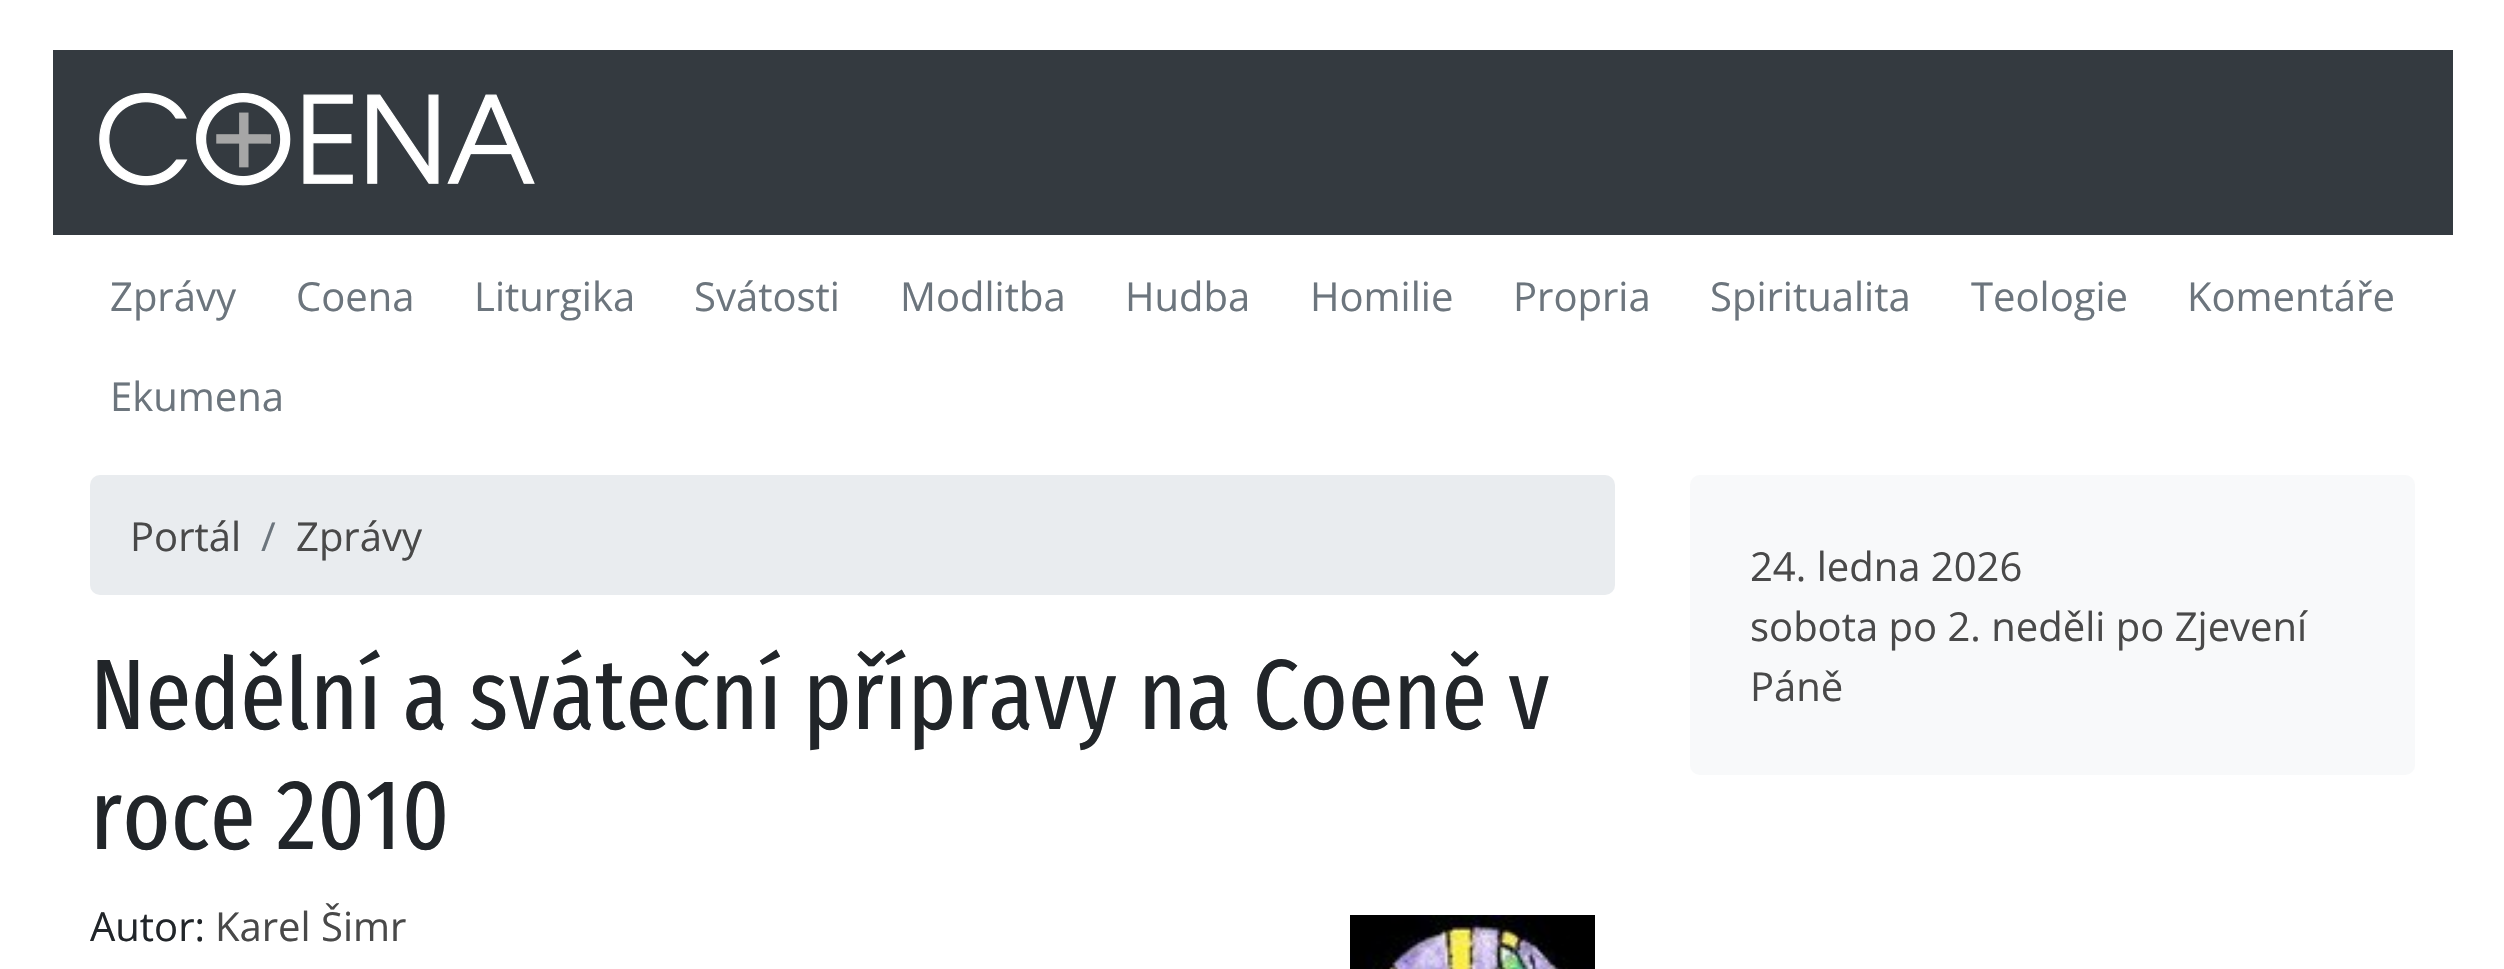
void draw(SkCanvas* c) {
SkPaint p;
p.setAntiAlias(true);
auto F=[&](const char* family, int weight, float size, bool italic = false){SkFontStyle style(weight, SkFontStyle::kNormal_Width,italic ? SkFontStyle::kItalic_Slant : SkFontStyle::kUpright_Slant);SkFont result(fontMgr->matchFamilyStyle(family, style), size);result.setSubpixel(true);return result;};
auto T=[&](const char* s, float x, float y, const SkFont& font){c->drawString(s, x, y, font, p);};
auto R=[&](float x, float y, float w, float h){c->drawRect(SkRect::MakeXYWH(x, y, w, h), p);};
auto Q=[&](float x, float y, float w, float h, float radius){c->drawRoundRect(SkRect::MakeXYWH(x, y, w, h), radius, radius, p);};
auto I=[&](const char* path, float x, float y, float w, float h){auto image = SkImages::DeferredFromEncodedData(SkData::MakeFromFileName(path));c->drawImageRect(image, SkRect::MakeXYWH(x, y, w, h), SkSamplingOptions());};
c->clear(0xffffffff);
p.setColor(0xff343a40);
R(53,50,2400,185);
I("1.png",99,93,436,93);
auto f1 = F("Open Sans",400,40);
p.setColor(0xff6c757d);
T("Zprávy",110,311,f1);
T("Coena",296,311,f1);
T("Liturgika",474,311,f1);
T("Svátosti",694,311,f1);
T("Modlitba",900,311,f1);
T("Hudba",1125,311,f1);
T("Homilie",1310,311,f1);
T("Propria",1513,311,f1);
T("Spiritualita",1710,311,f1);
T("Teologie",1971,311,f1);
T("Komentáře",2187,311,f1);
T("Ekumena",110,411,f1);
p.setColor(0xffe9ecef);
Q(90,475,1525,120,10);
p.setColor(0xff494949);
T("Portál",130,551,f1);
p.setColor(0xff6c757d);
T("/",261,551,f1);
p.setColor(0xff494949);
T("Zprávy",296,551,f1);
auto f2 = F("Fira Sans Extra Condensed",400,100);
p.setColor(0xff212529);
T("Nedělní a sváteční přípravy na Coeně v",90,729,f2);
T("roce 2010",90,849,f2);
T("Autor:",90,941,f1);
p.setColor(0xff494949);
T("Karel Šimr",215,941,f1);
I("2.png",1350,915,245,54);
p.setColor(0xfff8f9fa);
Q(1690,475,725,300,10);
p.setColor(0xff494949);
T("24. ledna 2026",1750,581,f1);
T("sobota po 2. neděli po Zjevení",1750,641,f1);
T("Páně",1750,701,f1);
}
